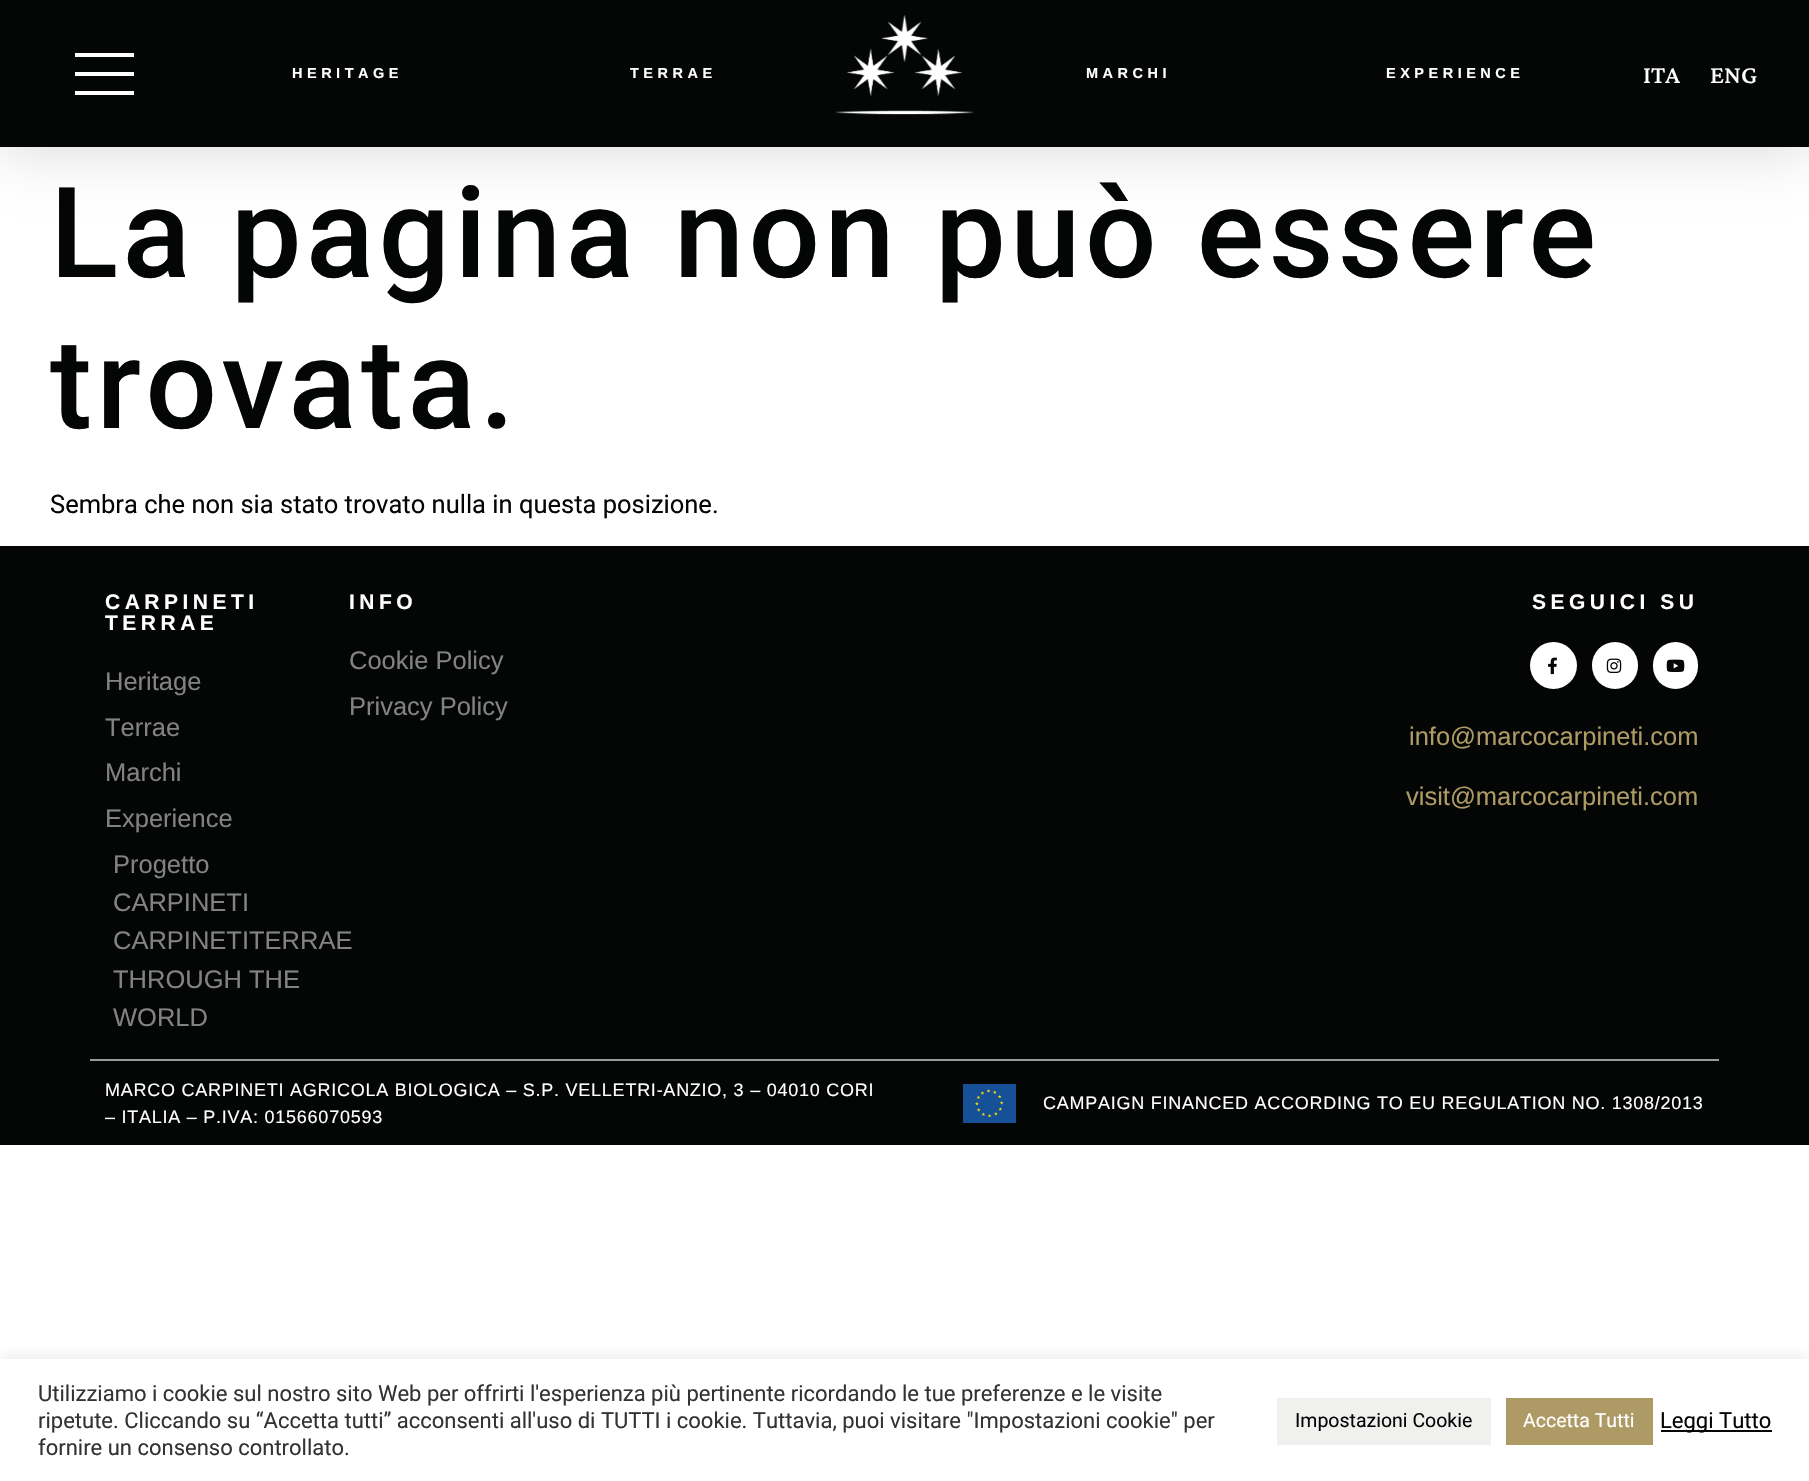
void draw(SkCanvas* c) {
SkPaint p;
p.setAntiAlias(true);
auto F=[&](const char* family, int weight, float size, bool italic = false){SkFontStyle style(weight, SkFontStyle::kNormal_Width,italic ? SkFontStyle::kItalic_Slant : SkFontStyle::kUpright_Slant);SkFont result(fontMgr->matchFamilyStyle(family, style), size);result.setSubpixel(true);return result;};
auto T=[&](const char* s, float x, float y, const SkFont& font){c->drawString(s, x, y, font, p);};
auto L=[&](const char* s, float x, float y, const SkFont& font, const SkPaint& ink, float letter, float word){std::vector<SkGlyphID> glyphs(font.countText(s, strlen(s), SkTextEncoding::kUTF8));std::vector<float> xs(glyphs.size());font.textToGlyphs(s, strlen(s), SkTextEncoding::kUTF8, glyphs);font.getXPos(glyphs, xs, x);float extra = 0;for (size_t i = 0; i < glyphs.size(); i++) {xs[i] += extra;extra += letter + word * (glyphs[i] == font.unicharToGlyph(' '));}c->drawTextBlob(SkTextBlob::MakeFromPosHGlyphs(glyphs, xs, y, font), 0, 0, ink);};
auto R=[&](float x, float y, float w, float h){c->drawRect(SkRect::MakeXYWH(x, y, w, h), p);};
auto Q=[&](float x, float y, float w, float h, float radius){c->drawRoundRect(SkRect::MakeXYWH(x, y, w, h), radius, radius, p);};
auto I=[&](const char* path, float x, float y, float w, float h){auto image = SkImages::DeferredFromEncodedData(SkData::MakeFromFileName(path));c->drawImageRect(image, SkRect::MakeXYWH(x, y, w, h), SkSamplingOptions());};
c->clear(0xffffffff);
p.setColor(0x29000000);
p.setMaskFilter(SkMaskFilter::MakeBlur(kNormal_SkBlurStyle, 30));
c->drawRect(SkRect::MakeXYWH(0,0,1809,147),p);
p.setMaskFilter(nullptr);
p.setColor(0xff040505);
R(0,0,1809,147);
p.setColor(0xffffffff);
R(75,53,59,4);
R(75,72,59,4);
R(75,91,59,4);
auto f1 = F("Liberation Sans",700,14.5);
L("HERITAGE",292,78,f1,p,4.5,0);
L("TERRAE",630,78,f1,p,4.5,0);
I("1.png",835,15,139,100);
L("MARCHI",1086,78,f1,p,4.5,0);
L("EXPERIENCE",1386,78,f1,p,4.5,0);
auto f2 = F("Crimson Pro",500,25.5);
T("ITA",1643,83,f2);
T("ENG",1710,83,f2);
auto f3 = F("Roboto",500,126);
p.setColor(0xff040505);
L("La pagina non può essere",50,277,f3,p,4.5,0);
L("trovata.",50,428,f3,p,4.5,0);
auto f4 = F("Roboto",400,25.5);
T("Sembra che non sia stato trovato nulla in questa posizione.",50,513,f4);
R(0,546,1809,599);
auto f5 = F("Liberation Sans",700,21);
p.setColor(0xffffffff);
L("CARPINETI",105,609,f5,p,4.5,0);
L("TERRAE",105,630,f5,p,4.5,0);
auto f6 = F("Liberation Sans",400,25.5);
p.setColor(0xff828282);
T("Heritage",105,690,f6);
T("Terrae",105,736,f6);
T("Marchi",105,781,f6);
T("Experience",105,827,f6);
T("Progetto",113,873,f6);
T("CARPINETI",113,911,f6);
T("CARPINETITERRAE",113,949,f6);
T("THROUGH THE",113,988,f6);
T("WORLD",113,1026,f6);
p.setColor(0xffffffff);
L("INFO",349,609,f5,p,4.5,0);
p.setColor(0xff828282);
T("Cookie Policy",349,669,f6);
T("Privacy Policy",349,715,f6);
p.setColor(0xffffffff);
L("SEGUICI SU",1532,609,f5,p,4.5,0);
c->drawCircle(1553.5,665.5,23.5,p);
I("2.png",1548,657,9,18);
Q(1592,642,46,47,23);
I("3.png",1606,658,16,15);
Q(1653,642,45,47,22.5);
I("4.png",1666,659,19,13);
p.setColor(0xffae9a64);
T("info@marcocarpineti.com",1409,745,f6);
T("visit@marcocarpineti.com",1406,805,f6);
p.setColor(0xff989999);
R(90,1059,1629,2);
auto f7 = F("Liberation Sans",400,18);
p.setColor(0xffffffff);
L("MARCO CARPINETI AGRICOLA BIOLOGICA – S.P. VELLETRI-ANZIO, 3 – 04010 CORI",105,1096,f7,p,.75,0);
L("– ITALIA – P.IVA: 01566070593",105,1123,f7,p,.75,0);
I("5.png",963,1084,53,39);
L("CAMPAIGN FINANCED ACCORDING TO EU REGULATION NO. 1308/2013",1043,1109,f7,p,.75,0);
c->save();
c->clipRect(SkRect::MakeXYWH(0,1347,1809,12));
p.setColor(0x4dacabab);
p.setMaskFilter(SkMaskFilter::MakeBlur(kNormal_SkBlurStyle, 7.5));
c->drawRect(SkRect::MakeXYWH(0,1358,1809,123),p);
p.setMaskFilter(nullptr);
c->restore();
auto f8 = F("Roboto",400,22);
p.setColor(0xff333333);
T("Utilizziamo i cookie sul nostro sito Web per offrirti l'esperienza più pertinente ricordando le tue preferenze e le visite",38,1401,f8);
T("ripetute. Cliccando su “Accetta tutti” acconsenti all'uso di TUTTI i cookie. Tuttavia, puoi visitare \"Impostazioni cookie\" per",38,1428,f8);
T("fornire un consenso controllato.",38,1455,f8);
p.setColor(0xfff0f1ee);
R(1277,1398,214,47);
auto f9 = F("Roboto",400,19.5);
p.setColor(0xff040505);
T("Impostazioni Cookie",1295,1427,f9);
p.setColor(0xffae9a64);
R(1506,1398,147,47);
p.setColor(0xffffffff);
T("Accetta Tutti",1523,1427,f9);
p.setColor(0xff040505);
R(1661,1430,111,2);
T("Leggi Tutto",1660,1428,f8);
}
